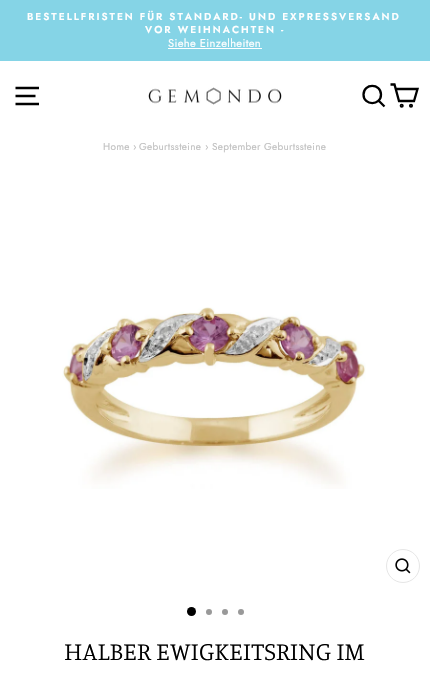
void draw(SkCanvas* c) {
SkPaint p;
p.setAntiAlias(true);
auto F=[&](const char* family, int weight, float size, bool italic = false){SkFontStyle style(weight, SkFontStyle::kNormal_Width,italic ? SkFontStyle::kItalic_Slant : SkFontStyle::kUpright_Slant);SkFont result(fontMgr->matchFamilyStyle(family, style), size);result.setSubpixel(true);return result;};
auto T=[&](const char* s, float x, float y, const SkFont& font){c->drawString(s, x, y, font, p);};
auto L=[&](const char* s, float x, float y, const SkFont& font, const SkPaint& ink, float letter, float word){std::vector<SkGlyphID> glyphs(font.countText(s, strlen(s), SkTextEncoding::kUTF8));std::vector<float> xs(glyphs.size());font.textToGlyphs(s, strlen(s), SkTextEncoding::kUTF8, glyphs);font.getXPos(glyphs, xs, x);float extra = 0;for (size_t i = 0; i < glyphs.size(); i++) {xs[i] += extra;extra += letter + word * (glyphs[i] == font.unicharToGlyph(' '));}c->drawTextBlob(SkTextBlob::MakeFromPosHGlyphs(glyphs, xs, y, font), 0, 0, ink);};
auto R=[&](float x, float y, float w, float h){c->drawRect(SkRect::MakeXYWH(x, y, w, h), p);};
auto I=[&](const char* path, float x, float y, float w, float h){auto image = SkImages::DeferredFromEncodedData(SkData::MakeFromFileName(path));c->drawImageRect(image, SkRect::MakeXYWH(x, y, w, h), SkSamplingOptions());};
auto P=[&](const char* data, bool evenOdd = false){SkPath result = *SkParsePath::FromSVGString(data);if (evenOdd) result.setFillType(SkPathFillType::kEvenOdd);return result;};
c->clear(0xffffffff);
p.setColor(0xff85d4e6);
R(0,0,430,61);
auto f1 = F("Jost",600,10.1);
p.setColor(0xffffffff);
L("BESTELLFRISTEN FÜR STANDARD- UND EXPRESSVERSAND",27,20,f1,p,2,0);
L("VOR WEIHNACHTEN -",145,33,f1,p,2,0);
auto f2 = F("Jost",400,11.25);
L("Siehe Einzelheiten",168,47,f2,p,.3,0);
R(168,48,94,1);
p.setStroke(true);
p.setStrokeWidth(2.3);
p.setColor(0xff000000);
c->drawPath(P("M15.5 88h23.5m-23.5 8h20m-20 8h23.5"),p);
I("1.png",148,87,134,18);
c->drawPath(P("M381 94.5c0 11.5-17.5 11.5-17.5 0c0-11.5 17.5-11.5 17.5 0zm3.5 12l-6-6m17-11.5h22l-3.5 12h-15l-4.5-16.5h-4"),p);
c->drawCircle(401.7,105.8,.9,p);
c->drawCircle(411,105.8,.9,p);
auto f3 = F("Jost",400,10);
p.setStroke(false);
p.setColor(0xffc0c0c0);
L("Home",103,150,f3,p,.3,0);
L("›",133,150,f3,p,.3,0);
L("Geburtssteine",139,150,f3,p,.3,0);
L("›",205,150,f3,p,.3,0);
L("September Geburtssteine",212,150,f3,p,.3,0);
I("2.png",62,307,304,182);
p.setStroke(true);
p.setStrokeWidth(1);
p.setColor(0xffe6e6e6);
c->drawCircle(403,566,16.5,p);
I("3.png",395,558,16,16);
p.setStroke(false);
p.setColor(0xff000000);
c->drawCircle(191.5,611.5,4.5,p);
p.setColor(0xff999999);
c->drawCircle(209,612,3,p);
c->drawCircle(225,612,3,p);
c->drawCircle(241,612,3,p);
auto f4 = F("Manuale",300,25.5);
p.setColor(0xff000000);
T("HALBER EWIGKEITSRING IM",64,660,f4);
}
